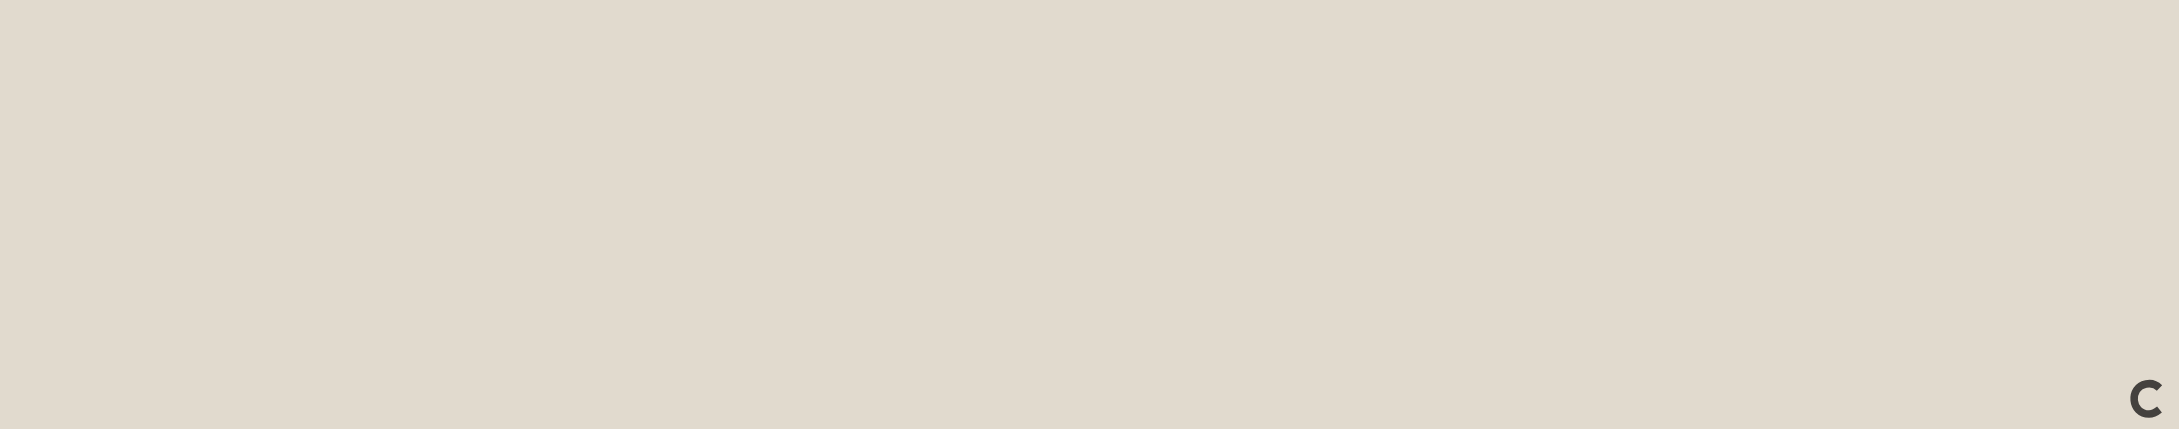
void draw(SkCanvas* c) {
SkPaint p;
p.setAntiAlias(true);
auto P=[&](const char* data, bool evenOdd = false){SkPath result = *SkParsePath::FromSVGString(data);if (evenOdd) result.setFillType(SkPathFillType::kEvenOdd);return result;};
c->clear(0xffe1dace);
p.setStroke(true);
p.setStrokeWidth(7.5);
p.setColor(0xff44413e);
c->drawPath(P("M2159.5 409.5c-3 2.5-7 4.5-10.5 4.5c-18 0-20.5-26.5-3-30c4.5-1 10 .5 13.5 4"),p);
}
